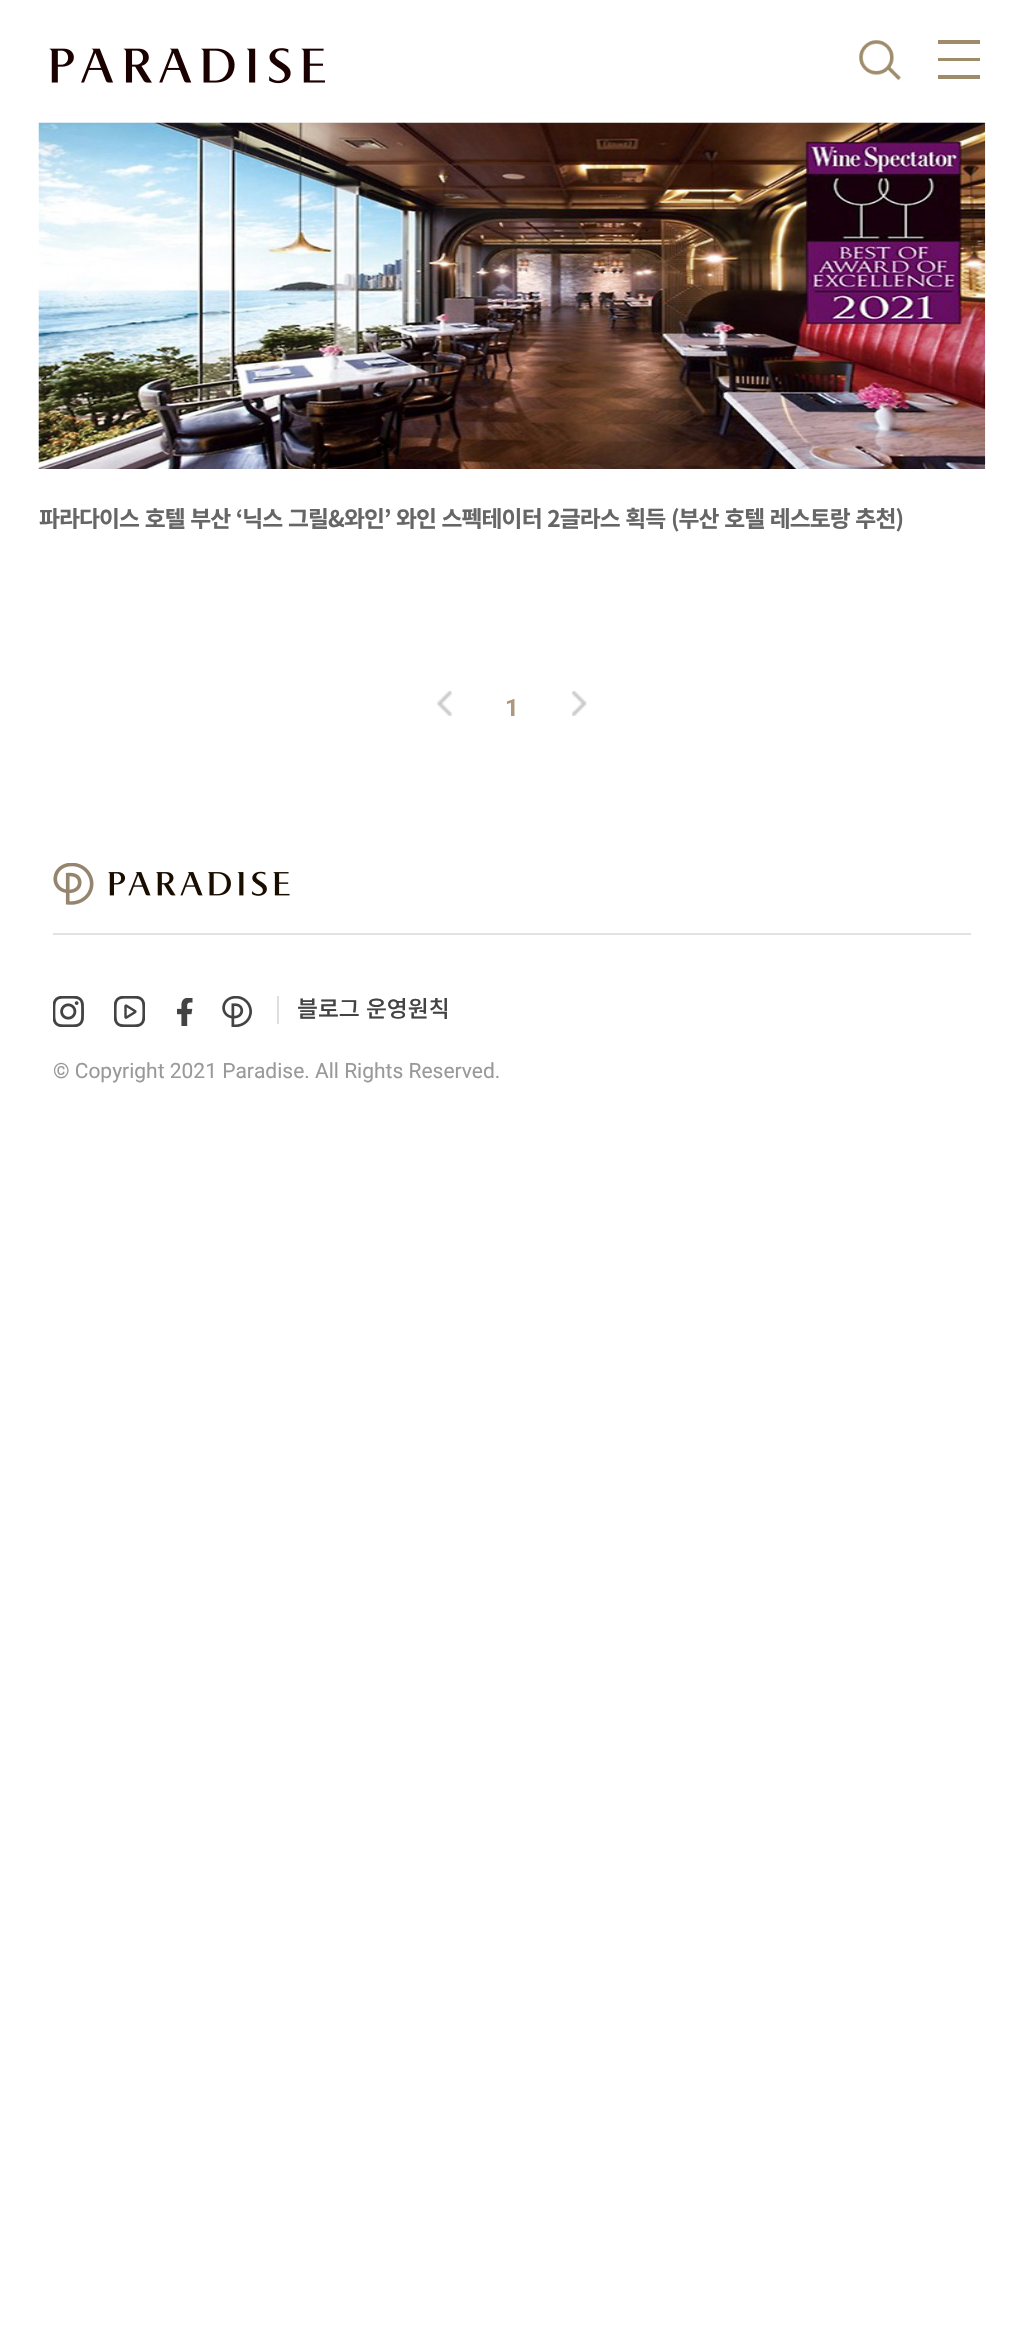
void draw(SkCanvas* c) {
SkPaint p;
p.setAntiAlias(true);
auto F=[&](const char* family, int weight, float size, bool italic = false){SkFontStyle style(weight, SkFontStyle::kNormal_Width,italic ? SkFontStyle::kItalic_Slant : SkFontStyle::kUpright_Slant);SkFont result(fontMgr->matchFamilyStyle(family, style), size);result.setSubpixel(true);return result;};
auto T=[&](const char* s, float x, float y, const SkFont& font){c->drawString(s, x, y, font, p);};
auto L=[&](const char* s, float x, float y, const SkFont& font, const SkPaint& ink, float letter, float word){std::vector<SkGlyphID> glyphs(font.countText(s, strlen(s), SkTextEncoding::kUTF8));std::vector<float> xs(glyphs.size());font.textToGlyphs(s, strlen(s), SkTextEncoding::kUTF8, glyphs);font.getXPos(glyphs, xs, x);float extra = 0;for (size_t i = 0; i < glyphs.size(); i++) {xs[i] += extra;extra += letter + word * (glyphs[i] == font.unicharToGlyph(' '));}c->drawTextBlob(SkTextBlob::MakeFromPosHGlyphs(glyphs, xs, y, font), 0, 0, ink);};
auto R=[&](float x, float y, float w, float h){c->drawRect(SkRect::MakeXYWH(x, y, w, h), p);};
auto I=[&](const char* path, float x, float y, float w, float h){auto image = SkImages::DeferredFromEncodedData(SkData::MakeFromFileName(path));c->drawImageRect(image, SkRect::MakeXYWH(x, y, w, h), SkSamplingOptions());};
c->clear(0xffffffff);
I("1.png",49,48,276,36);
I("2.png",859,40,43,41);
p.setColor(0xff9e8b6a);
R(938,40,42,4);
R(938,58,42,3);
R(938,75,42,4);
I("3.png",38,122,948,347);
auto f1 = F("Noto Sans KR",700,22.75);
p.setColor(0xff666666);
L("파라다이스 호텔 부산 ‘닉스 그릴&와인’ 와인 스펙테이터 2글라스 획득 (부산 호텔 레스토랑 추천)",39,527,f1,p,-.9,1.25);
I("4.png",437,691,15,25);
auto f2 = F("Roboto",700,24);
p.setColor(0xffaa997c);
L("1",505,716,f2,p,-1,0);
I("5.png",572,691,15,25);
I("6.png",53,863,237,42);
p.setColor(0xffe2e2e2);
R(53,933,918,2);
I("7.png",53,996,31,31);
I("8.png",114,996,31,31);
I("9.png",177,998,16,28);
I("10.png",222,996,30,31);
p.setColor(0xffdedede);
R(277,996,2,28);
auto f3 = F("Noto Sans KR",500,22.75);
p.setColor(0xff434343);
L("블로그 운영원칙",297,1017,f3,p,0,1);
auto f4 = F("Roboto",400,21);
p.setColor(0xff999999);
T("© Copyright 2021 Paradise. All Rights Reserved.",53,1078,f4);
}
